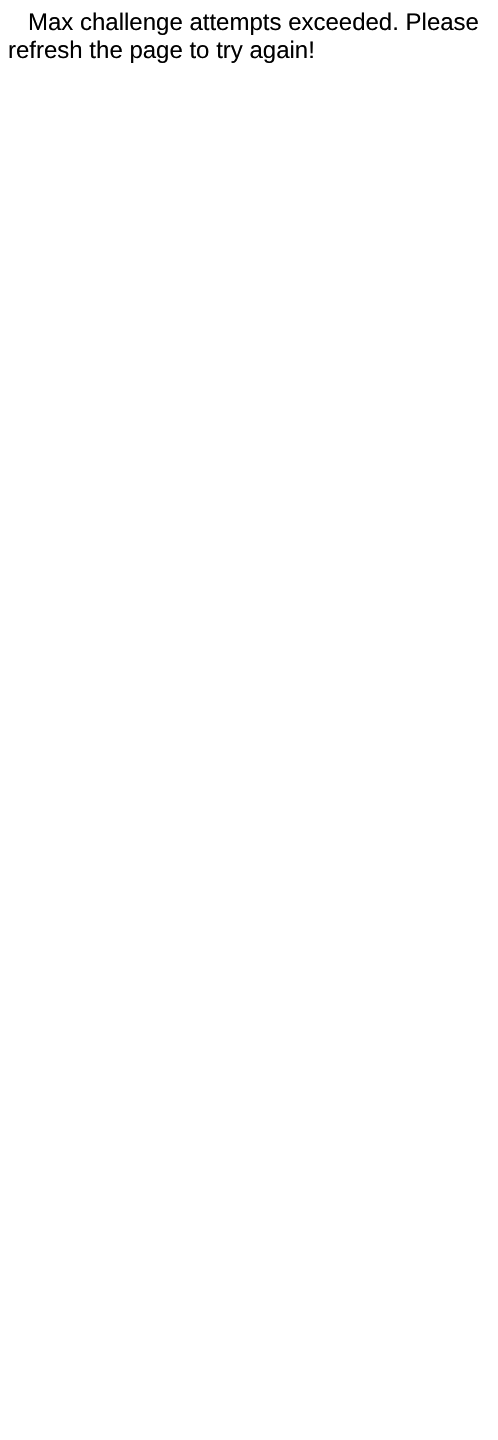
void draw(SkCanvas* c) {
SkPaint p;
p.setAntiAlias(true);
auto F=[&](const char* family, int weight, float size, bool italic = false){SkFontStyle style(weight, SkFontStyle::kNormal_Width,italic ? SkFontStyle::kItalic_Slant : SkFontStyle::kUpright_Slant);SkFont result(fontMgr->matchFamilyStyle(family, style), size);result.setSubpixel(true);return result;};
auto T=[&](const char* s, float x, float y, const SkFont& font){c->drawString(s, x, y, font, p);};
c->clear(0xffffffff);
auto f1 = F("Liberation Sans",400,24);
p.setColor(0xff000000);
T("Max challenge attempts exceeded. Please",28,30,f1);
T("refresh the page to try again!",8,58,f1);
}
